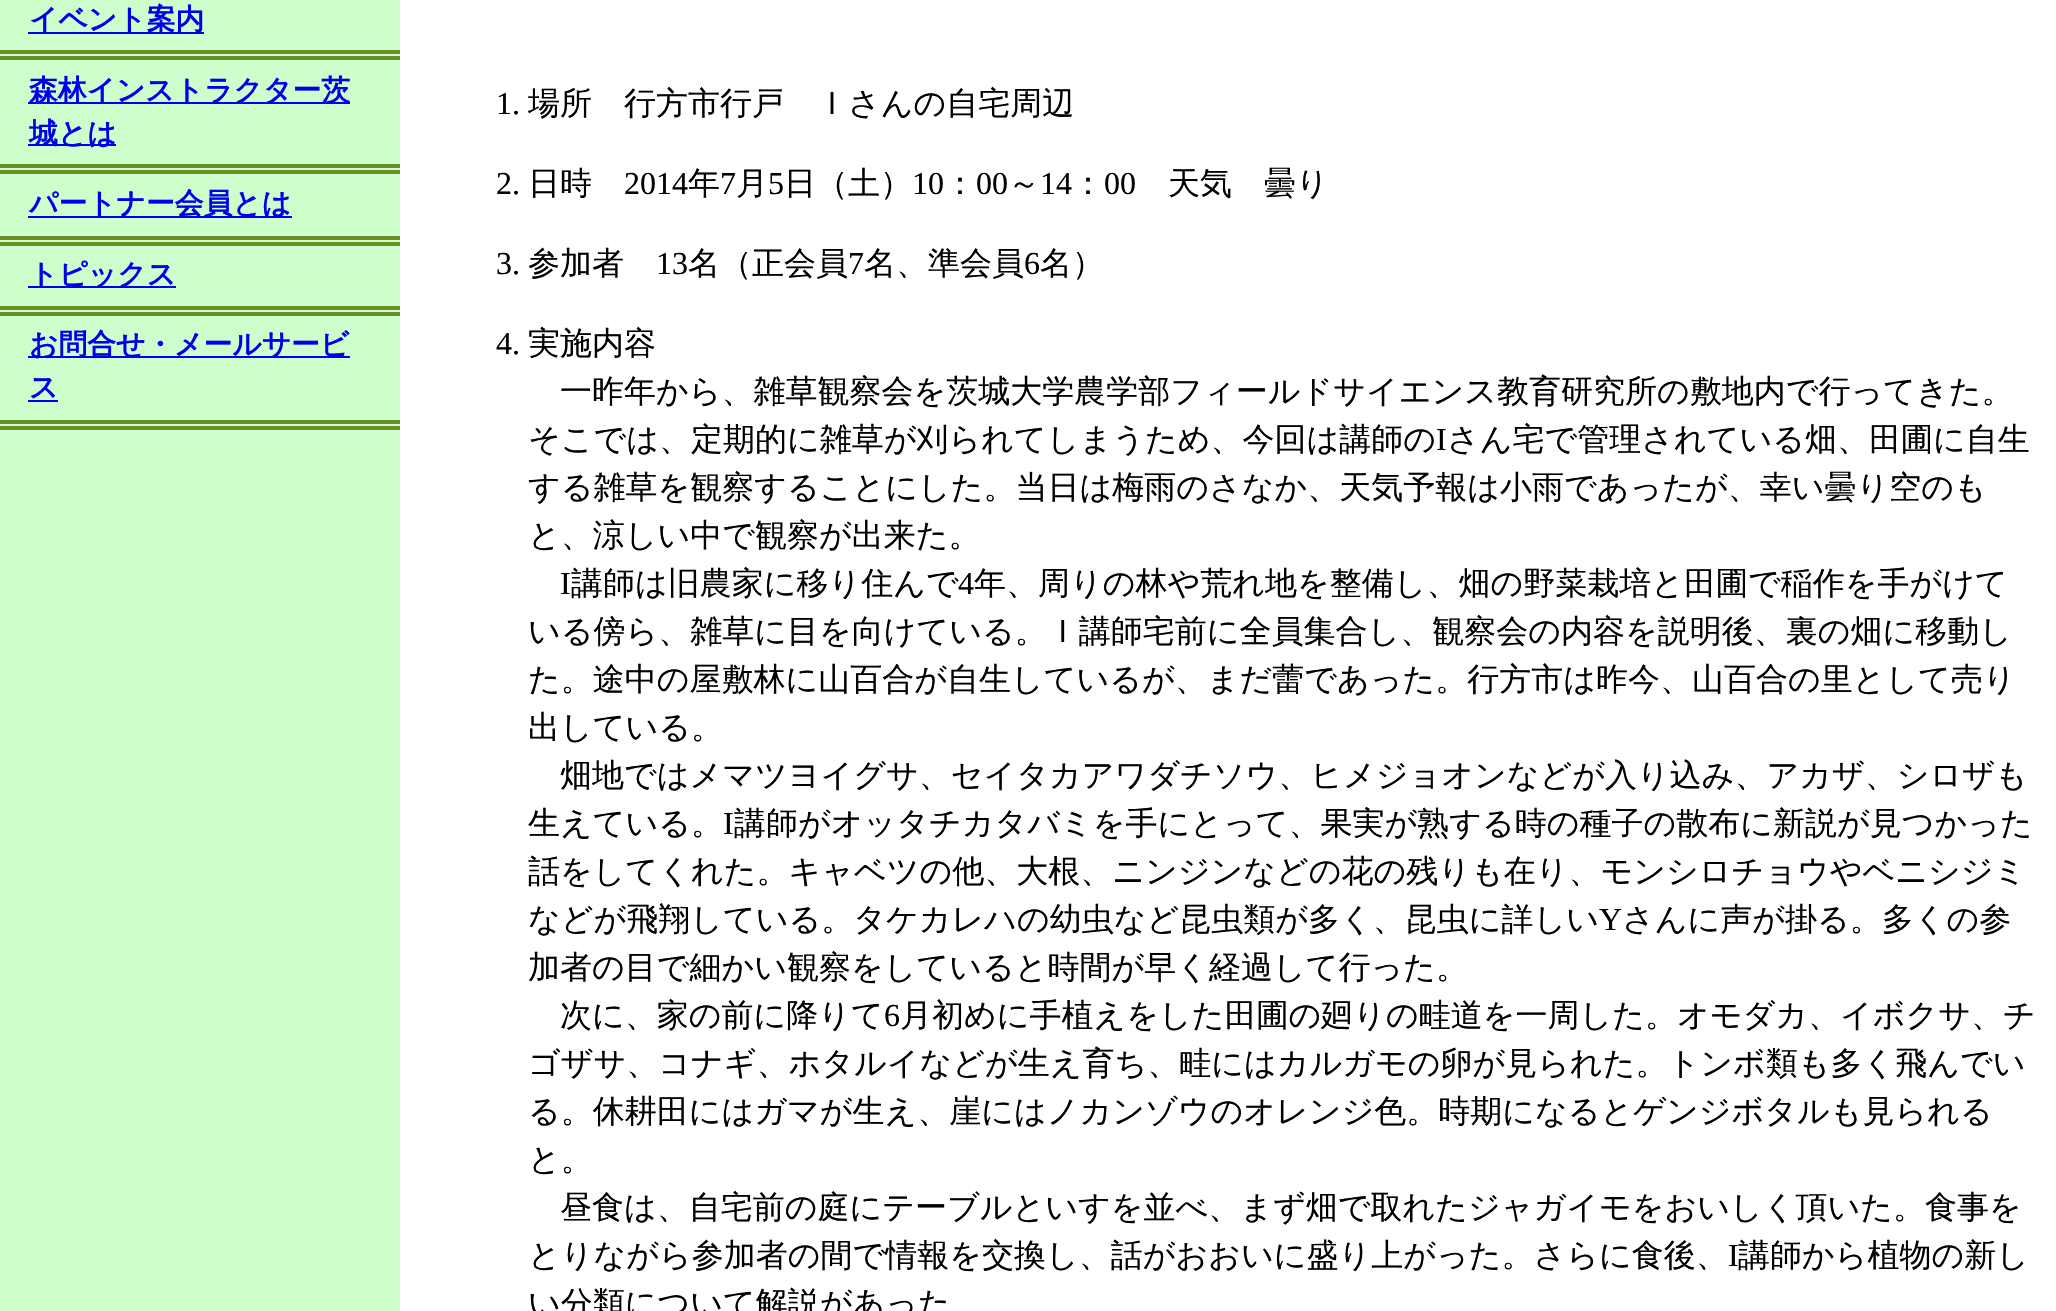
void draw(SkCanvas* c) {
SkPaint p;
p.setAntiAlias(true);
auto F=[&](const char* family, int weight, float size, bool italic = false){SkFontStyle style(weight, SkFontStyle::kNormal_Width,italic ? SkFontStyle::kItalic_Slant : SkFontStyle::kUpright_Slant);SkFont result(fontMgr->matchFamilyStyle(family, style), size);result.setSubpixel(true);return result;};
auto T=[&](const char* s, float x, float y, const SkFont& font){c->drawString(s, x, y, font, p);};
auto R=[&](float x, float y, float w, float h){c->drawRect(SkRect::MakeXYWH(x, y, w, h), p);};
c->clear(0xffccffcc);
p.setColor(0xff6b8e23);
R(0,50,400,4);
R(0,56,400,4);
p.setColor(0xff0000ee);
R(28,32,176,2);
auto f1 = F("WenQuanYi Zen Hei",700,28.75);
T("イベント案内",29,29,f1);
p.setColor(0xff6b8e23);
R(0,164,400,4);
R(0,170,400,4);
p.setColor(0xff0000ee);
R(28,102,322,2);
T("森林インストラクター茨",29,100,f1);
R(28,144,88,2);
T("城とは",29,143,f1);
p.setColor(0xff6b8e23);
R(0,236,400,4);
R(0,242,400,4);
p.setColor(0xff0000ee);
R(28,216,264,2);
T("パートナー会員とは",29,213,f1);
p.setColor(0xff6b8e23);
R(0,306,400,4);
R(0,312,400,4);
p.setColor(0xff0000ee);
R(28,286,148,2);
T("トピックス",29,284,f1);
p.setColor(0xff6b8e23);
R(0,420,400,4);
R(0,426,400,4);
p.setColor(0xff0000ee);
R(28,356,322,2);
T("お問合せ・メールサービ",29,354,f1);
T("ス",29,397,f1);
R(28,400,30,2);
p.setColor(0xffffffff);
R(400,0,1656,1311);
auto f2 = F("Liberation Serif",400,32);
p.setColor(0xff000000);
T("1.",496,114,f2);
auto f3 = F("WenQuanYi Zen Hei",500,32);
T("場所　行方市行戸　Ｉさんの自宅周辺",528,114,f3);
T("2.",496,194,f2);
T("日時",528,194,f3);
T("2014",624,194,f2);
T("年",688,194,f3);
T("7",720,194,f2);
T("月",736,194,f3);
T("5",768,194,f2);
T("日（土）",784,194,f3);
T("10",912,194,f2);
T("：",944,194,f3);
T("00",976,194,f2);
T("～",1008,194,f3);
T("14",1040,194,f2);
T("：",1072,194,f3);
T("00",1104,194,f2);
T("天気　曇り",1168,194,f3);
T("3.",496,274,f2);
T("参加者",528,274,f3);
T("13",656,274,f2);
T("名（正会員",688,274,f3);
T("7",848,274,f2);
T("名、準会員",864,274,f3);
T("6",1024,274,f2);
T("名）",1040,274,f3);
T("4.",496,354,f2);
T("実施内容",528,354,f3);
T("一昨年から、雑草観察会を茨城大学農学部フィールドサイエンス教育研究所の敷地内で行ってきた。",560,402,f3);
T("そこでは、定期的に雑草が刈られてしまうため、今回は講師の",528,450,f3);
T("I",1436,450,f2);
T("さん宅で管理されている畑、田圃に自生",1447,450,f3);
T("する雑草を観察することにした。当日は梅雨のさなか、天気予報は小雨であったが、幸い曇り空のも",528,498,f3);
T("と、涼しい中で観察が出来た。",528,546,f3);
T("I",560,594,f2);
T("講師は旧農家に移り住んで",571,594,f3);
T("4",958,594,f2);
T("年、周りの林や荒れ地を整備し、畑の野菜栽培と田圃で稲作を手がけて",974,594,f3);
T("いる傍ら、雑草に目を向けている。Ｉ講師宅前に全員集合し、観察会の内容を説明後、裏の畑に移動し",528,642,f3);
T("た。途中の屋敷林に山百合が自生しているが、まだ蕾であった。行方市は昨今、山百合の里として売り",528,690,f3);
T("出している。",528,738,f3);
T("畑地ではメマツヨイグサ、セイタカアワダチソウ、ヒメジョオンなどが入り込み、アカザ、シロザも",560,786,f3);
T("生えている。",528,834,f3);
T("I",723,834,f2);
T("講師がオッタチカタバミを手にとって、果実が熟する時の種子の散布に新説が見つかった",734,834,f3);
T("話をしてくれた。キャベツの他、大根、ニンジンなどの花の残りも在り、モンシロチョウやベニシジミ",528,882,f3);
T("などが飛翔している。タケカレハの幼虫など昆虫類が多く、昆虫に詳しい",528,930,f3);
T("Y",1599,930,f2);
T("さんに声が掛る。多くの参",1622,930,f3);
T("加者の目で細かい観察をしていると時間が早く経過して行った。",528,978,f3);
T("次に、家の前に降りて",560,1026,f3);
T("6",884,1026,f2);
T("月初めに手植えをした田圃の廻りの畦道を一周した。オモダカ、イボクサ、チ",900,1026,f3);
T("ゴザサ、コナギ、ホタルイなどが生え育ち、畦にはカルガモの卵が見られた。トンボ類も多く飛んでい",528,1074,f3);
T("る。休耕田にはガマが生え、崖にはノカンゾウのオレンジ色。時期になるとゲンジボタルも見られる",528,1122,f3);
T("と。",528,1170,f3);
T("昼食は、自宅前の庭にテーブルといすを並べ、まず畑で取れたジャガイモをおいしく頂いた。食事を",560,1218,f3);
T("とりながら参加者の間で情報を交換し、話がおおいに盛り上がった。さらに食後、",528,1266,f3);
T("I",1728,1266,f2);
T("講師から植物の新し",1738,1266,f3);
T("い分類について解説があった",528,1314,f3);
}
